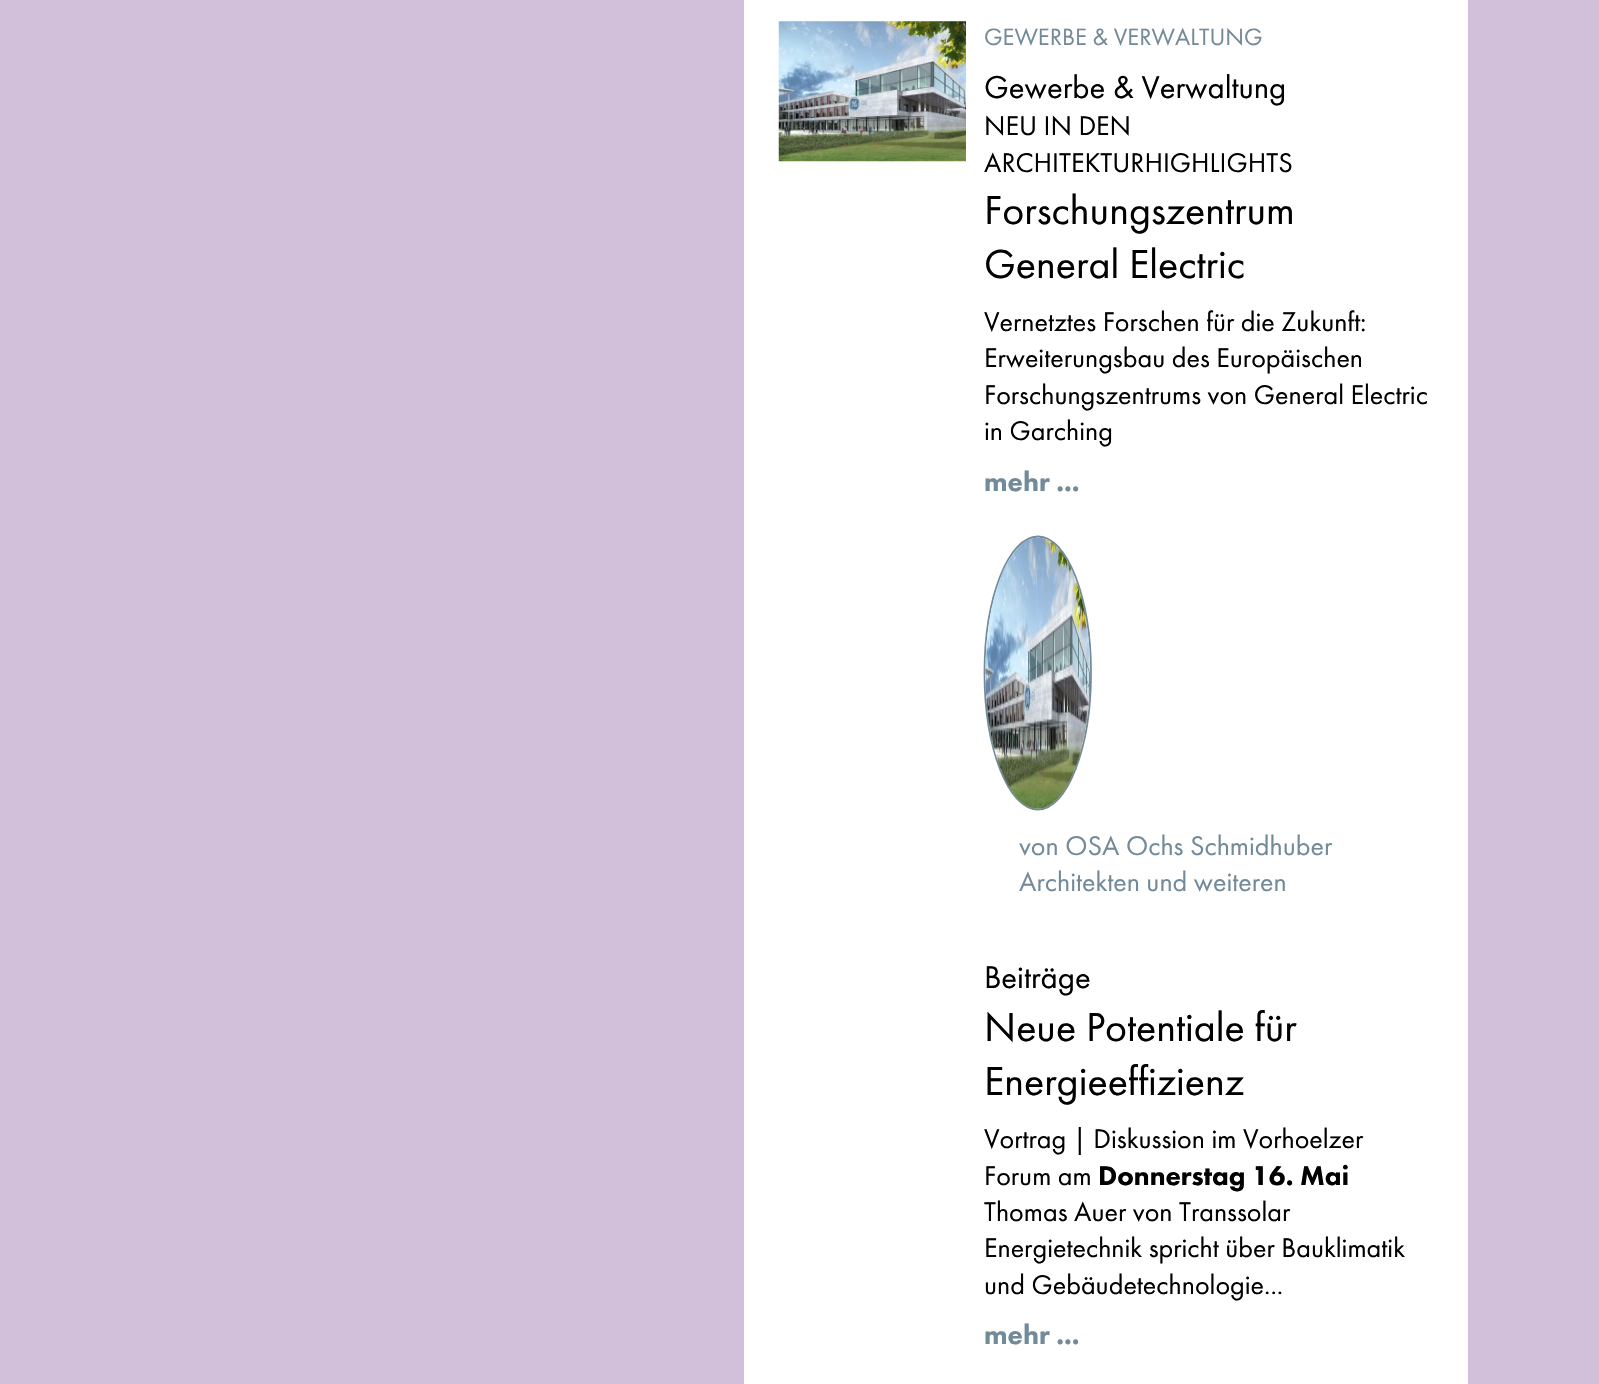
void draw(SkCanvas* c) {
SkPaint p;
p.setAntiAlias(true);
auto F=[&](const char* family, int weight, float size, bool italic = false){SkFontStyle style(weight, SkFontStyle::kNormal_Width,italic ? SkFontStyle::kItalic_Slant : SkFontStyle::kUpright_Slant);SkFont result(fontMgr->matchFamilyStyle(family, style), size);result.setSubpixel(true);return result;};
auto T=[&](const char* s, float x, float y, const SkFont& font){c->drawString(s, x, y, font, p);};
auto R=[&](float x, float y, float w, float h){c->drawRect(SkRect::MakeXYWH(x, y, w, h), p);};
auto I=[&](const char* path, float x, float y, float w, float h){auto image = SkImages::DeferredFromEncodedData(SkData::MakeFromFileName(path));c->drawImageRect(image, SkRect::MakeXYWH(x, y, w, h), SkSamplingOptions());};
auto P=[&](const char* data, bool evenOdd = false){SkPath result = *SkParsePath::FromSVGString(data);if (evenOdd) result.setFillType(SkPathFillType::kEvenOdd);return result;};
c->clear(0xffd2bfd9);
p.setColor(0xffffffff);
R(744,0,724,1384);
I("1.png",778,21,188,141);
auto f1 = F("Futura PT",400,24.5);
p.setColor(0xff738a99);
T("GEWERBE & VERWALTUNG",984,45,f1);
auto f2 = F("Futura PT",400,32.75);
p.setColor(0xff000000);
T("Gewerbe & Verwaltung",984,98,f2);
auto f3 = F("Futura PT",400,28);
T("NEU IN DEN",984,135,f3);
T("ARCHITEKTURHIGHLIGHTS",984,172,f3);
auto f4 = F("Futura PT",400,42);
T("Forschungszentrum",984,224,f4);
T("General Electric",984,278,f4);
T("Vernetztes Forschen für die Zukunft:",984,331,f3);
T("Erweiterungsbau des Europäischen",984,367,f3);
T("Forschungszentrums von General Electric",984,404,f3);
T("in Garching",984,440,f3);
auto f5 = F("Futura PT",900,28);
p.setColor(0xff738a99);
T("mehr ...",984,491,f5);
p.setStroke(true);
p.setStrokeWidth(1.8);
c->drawPath(P("M1038 536.5c29 0 53 61 53 136.5c0 75.5-24 136.5-53 136.5c-29.5 0-53.5-61-53.5-136.5c0-75.5 24-136.5 53.5-136.5z"),p);
I("2.png",985,537,106,272);
p.setStroke(false);
T("von OSA Ochs Schmidhuber",1019,855,f3);
T("Architekten und weiteren",1019,891,f3);
p.setColor(0xff000000);
T("Beiträge",984,988,f2);
T("Neue Potentiale für",984,1041,f4);
T("Energieeffizienz",984,1095,f4);
T("Vortrag | Diskussion im Vorhoelzer",984,1148,f3);
T("Forum am",984,1185,f3);
T("Donnerstag 16. Mai",1098,1185,f5);
T("Thomas Auer von Transsolar",984,1221,f3);
T("Energietechnik spricht über Bauklimatik",984,1257,f3);
T("und Gebäudetechnologie...",984,1294,f3);
p.setColor(0xff738a99);
T("mehr ...",984,1344,f5);
}
